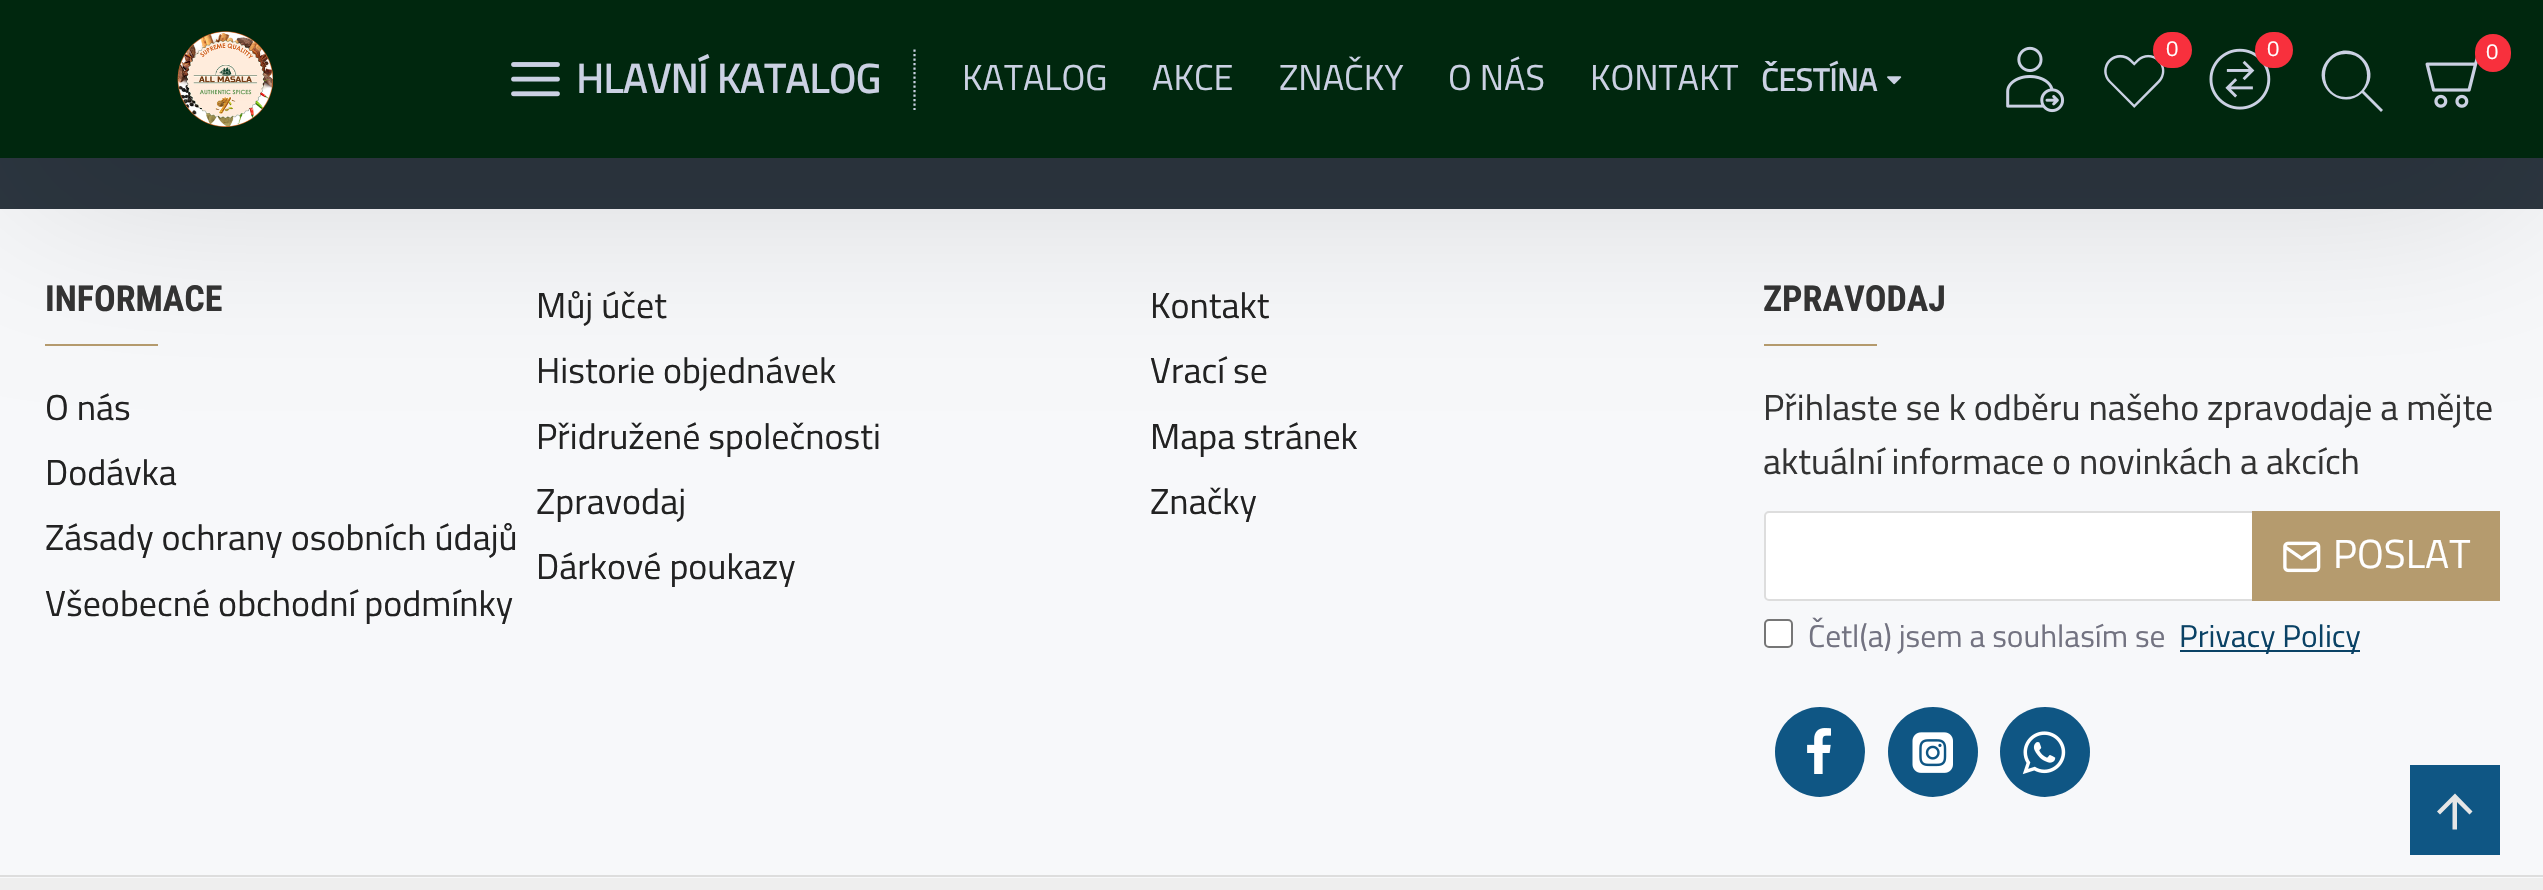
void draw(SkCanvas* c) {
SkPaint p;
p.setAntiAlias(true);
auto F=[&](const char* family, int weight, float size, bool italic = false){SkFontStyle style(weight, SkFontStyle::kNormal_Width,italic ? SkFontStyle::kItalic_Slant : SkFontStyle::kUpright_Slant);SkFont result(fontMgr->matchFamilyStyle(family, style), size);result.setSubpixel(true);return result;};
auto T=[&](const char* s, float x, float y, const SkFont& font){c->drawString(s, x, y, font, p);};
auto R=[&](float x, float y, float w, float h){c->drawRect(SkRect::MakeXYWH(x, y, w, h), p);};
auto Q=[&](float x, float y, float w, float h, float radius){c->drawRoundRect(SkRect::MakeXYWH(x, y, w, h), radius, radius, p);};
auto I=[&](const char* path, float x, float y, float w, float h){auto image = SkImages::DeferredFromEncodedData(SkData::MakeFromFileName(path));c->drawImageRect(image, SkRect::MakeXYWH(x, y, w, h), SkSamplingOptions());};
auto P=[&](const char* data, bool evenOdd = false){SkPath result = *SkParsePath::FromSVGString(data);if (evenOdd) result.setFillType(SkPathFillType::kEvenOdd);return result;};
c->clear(0xfff7f8fa);
p.setColor(0xff2c3640);
R(0,158,2543,51);
p.setColor(0xffb59b6e);
R(45,344,113,2);
R(1764,344,113,2);
p.setColor(0x33000000);
p.setMaskFilter(SkMaskFilter::MakeBlur(kNormal_SkBlurStyle, 101));
c->drawRect(SkRect::MakeXYWH(23,56,2499,113),p);
p.setMaskFilter(nullptr);
p.setColor(0xff00270e);
R(0,0,2543,158);
I("1.png",177,31,96,96);
I("2.png",511,62,49,35);
p.setStroke(true);
p.setStrokeWidth(2.2);
p.setColor(0xffcbd1e3);
p.setPathEffect(SkDashPathEffect::Make({{2.25f,2.25f}}, 0));
c->drawPath(P("M914.5 49.5v60.5"),p);
p.setPathEffect(nullptr);
auto f1 = F("Titillium Web",700,40.5);
p.setStroke(false);
T("HLAVNÍ KATALOG",576,93,f1);
auto f2 = F("Titillium Web",400,36);
T("KATALOG",962,90,f2);
T("AKCE",1152,90,f2);
T("ZNAČKY",1279,90,f2);
T("O NÁS",1448,90,f2);
T("KONTAKT",1590,90,f2);
auto f3 = F("Titillium Web",700,31.5);
T("ČESTÍNA",1761,91,f3);
I("3.png",1887,76,15,9);
I("4.png",2006,46,59,67);
I("5.png",2104,54,61,54);
p.setColor(0xfff8303d);
Q(2153,32,39,36,18);
auto f4 = F("Titillium Web",400,22);
p.setColor(0xffffffff);
T("0",2166,56,f4);
I("6.png",2209,48,62,62);
p.setColor(0xfff8303d);
Q(2255,32,38,36,18);
p.setColor(0xffffffff);
T("0",2267,56,f4);
p.setColor(0xffcbd1e3);
c->drawPath(P("M2362 93l19 19l2-2l-19-19c21-23-13-55-35-33c-22 22 10 56 33 35zm-16-39c28 0 28 43 0 43c-28 0-28-43 0-43z"),p);
I("7.png",2425,57,53,51);
p.setColor(0xfff8303d);
Q(2475,34,36,38,18);
p.setColor(0xffffffff);
T("0",2486,59,f4);
auto f5 = F("Roboto Condensed",700,36);
p.setColor(0xff333333);
T("INFORMACE",45,311,f5);
p.setColor(0xff222222);
T("O nás",45,420,f2);
T("Dodávka",45,485,f2);
T("Zásady ochrany osobních údajů",45,550,f2);
T("Všeobecné obchodní podmínky",45,616,f2);
T("Můj účet",536,318,f2);
T("Historie objednávek",536,383,f2);
T("Přidružené společnosti",536,449,f2);
T("Zpravodaj",536,514,f2);
T("Dárkové poukazy",536,579,f2);
T("Kontakt",1150,318,f2);
T("Vrací se",1150,383,f2);
T("Mapa stránek",1150,449,f2);
T("Značky",1150,514,f2);
p.setColor(0xff333333);
T("ZPRAVODAJ",1763,311,f5);
T("Přihlaste se k odběru našeho zpravodaje a mějte",1763,420,f2);
T("aktuální informace o novinkách a akcích",1763,474,f2);
p.setColor(0xffffffff);
c->drawRoundRect(SkRect::MakeXYWH(1765,512,734,88),4,4,p);
p.setStroke(true);
p.setStrokeWidth(2);
p.setColor(0xffdddddd);
c->drawRoundRect(SkRect::MakeXYWH(1765,512,734,88),4,4,p);
p.setStroke(false);
p.setColor(0xffb59b6e);
R(2252,511,248,90);
I("8.png",2283,541,38,32);
auto f6 = F("Titillium Web",400,40.5);
p.setColor(0xffffffff);
T("POSLAT",2333,568,f6);
c->drawRoundRect(SkRect::MakeXYWH(1765,620,27,27),4,4,p);
p.setStroke(true);
p.setColor(0xff767676);
c->drawRoundRect(SkRect::MakeXYWH(1765,620,27,27),4,4,p);
auto f7 = F("Titillium Web",400,31.5);
p.setStroke(false);
p.setColor(0xff737381);
T("Četl(a) jsem a souhlasím se",1808,647,f7);
p.setColor(0xff0a4265);
R(2180,650,180,2);
T("Privacy Policy",2179,647,f7);
p.setColor(0xff0f5684);
c->drawCircle(1820,752,45,p);
I("9.png",1807,728,24,46);
c->drawCircle(1933,752,45,p);
I("10.png",1912,732,41,41);
c->drawCircle(2045,752,45,p);
I("11.png",2022,731,44,44);
p.setColor(0xffeeeeee);
R(0,878,2543,12);
p.setColor(0xffdddddd);
R(0,875,2543,2);
p.setColor(0xff0f5684);
R(2410,765,90,90);
p.setColor(0xffe6e6e6);
c->drawPath(P("M2437 811.5l18-18l17.5 18l-3 3l-12.5-12.5v27.5h-4.5v-27.5l-12.5 12.5z"),p);
}
